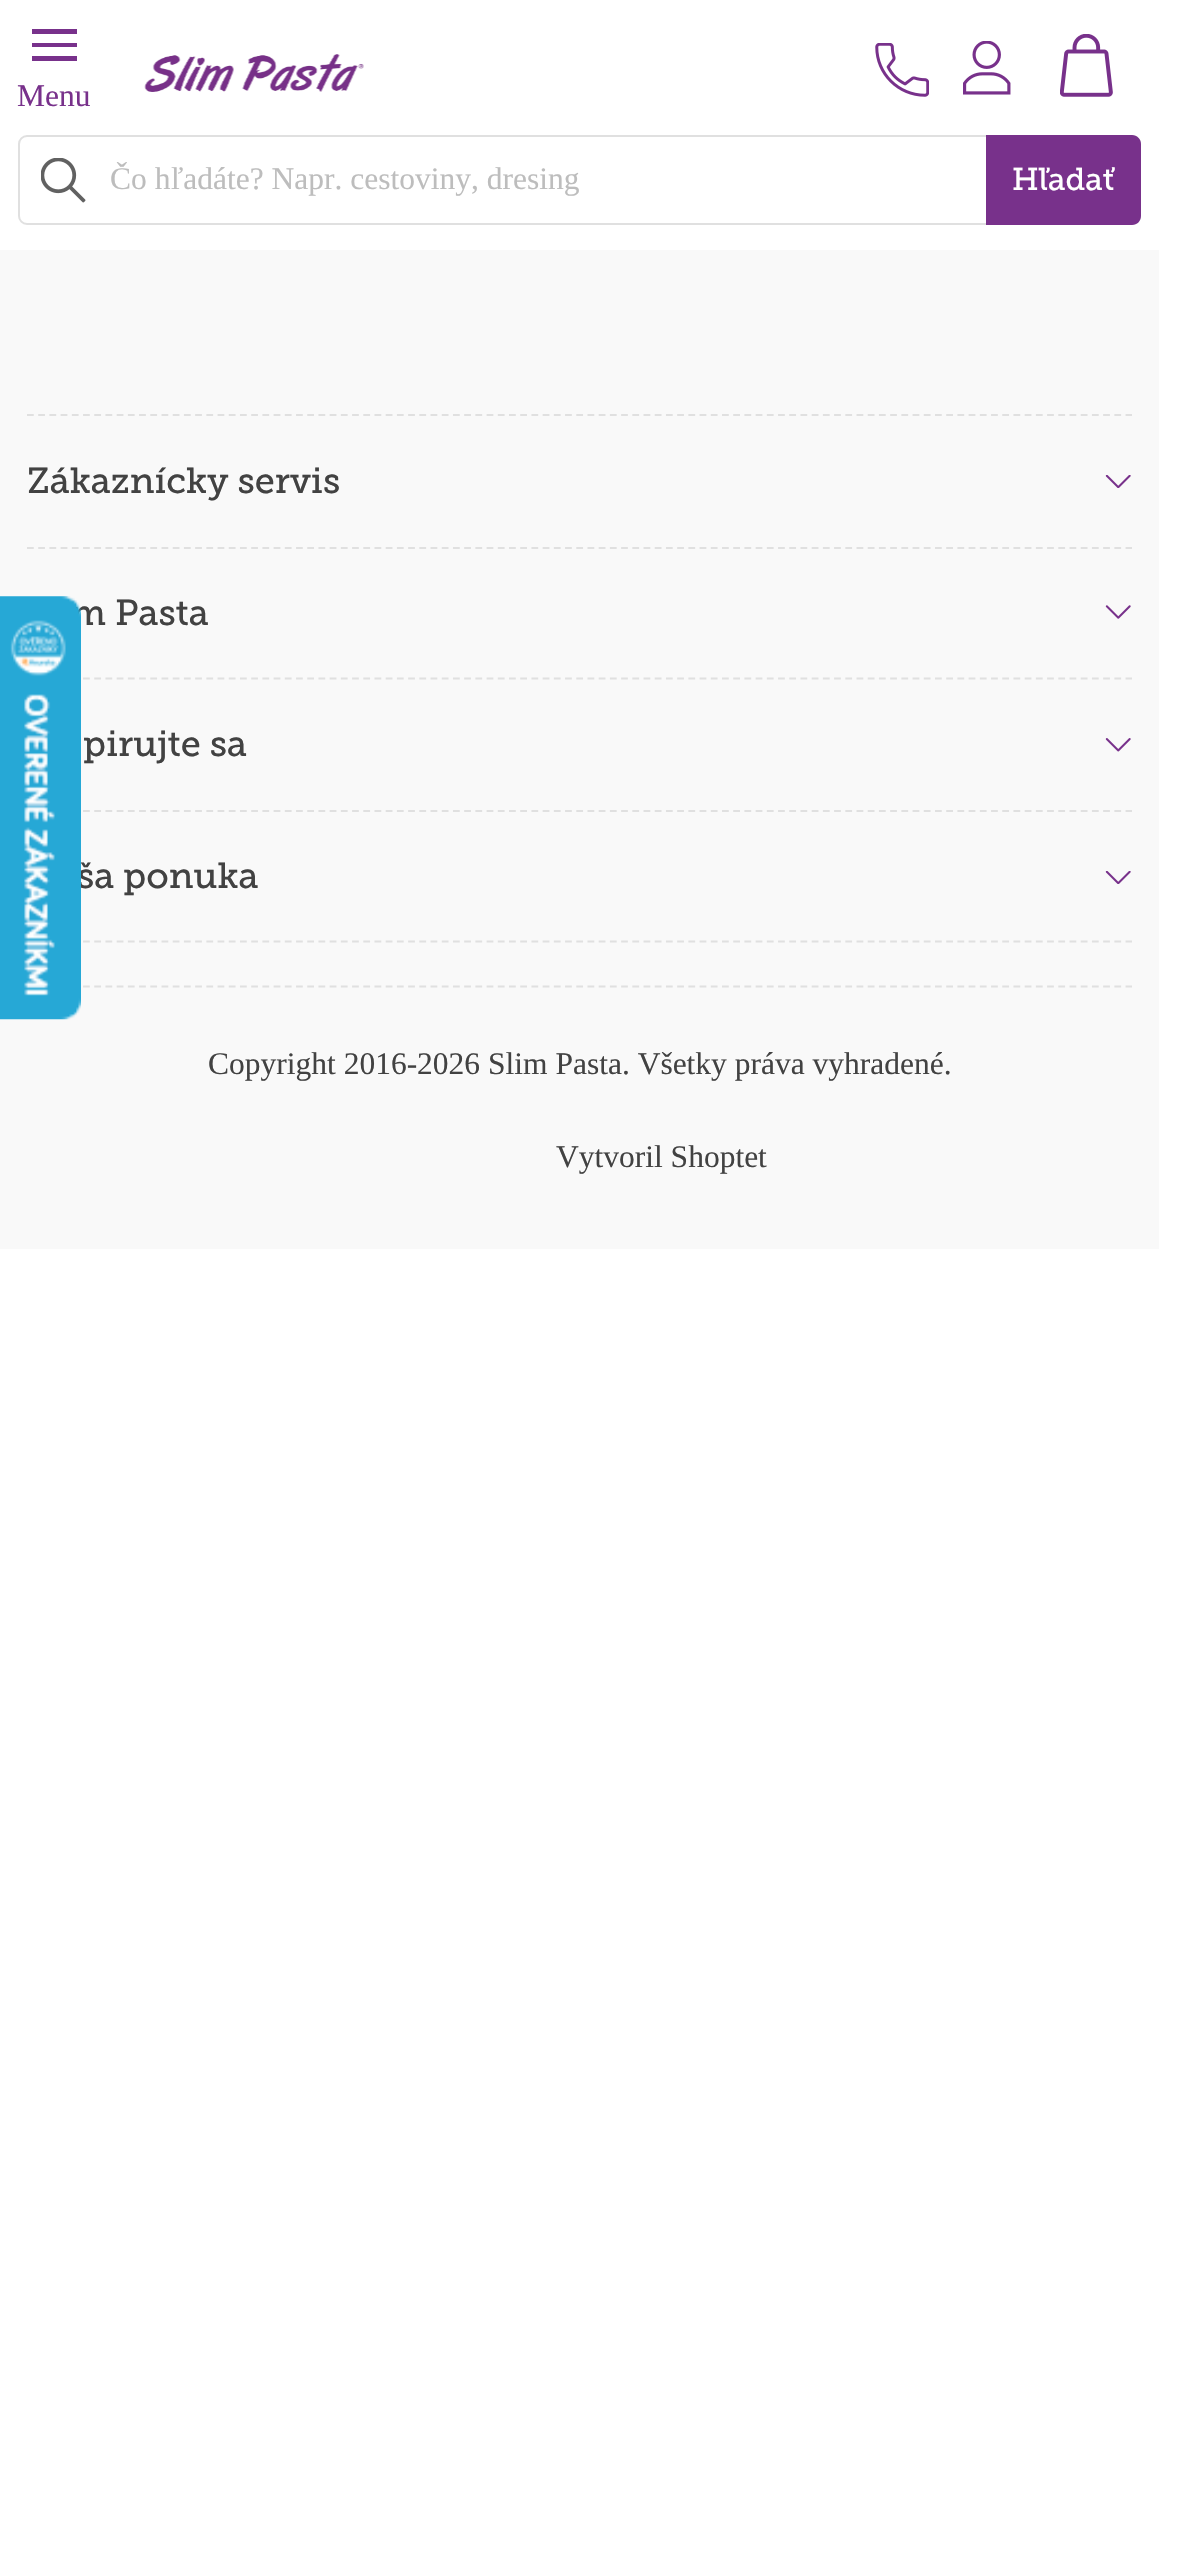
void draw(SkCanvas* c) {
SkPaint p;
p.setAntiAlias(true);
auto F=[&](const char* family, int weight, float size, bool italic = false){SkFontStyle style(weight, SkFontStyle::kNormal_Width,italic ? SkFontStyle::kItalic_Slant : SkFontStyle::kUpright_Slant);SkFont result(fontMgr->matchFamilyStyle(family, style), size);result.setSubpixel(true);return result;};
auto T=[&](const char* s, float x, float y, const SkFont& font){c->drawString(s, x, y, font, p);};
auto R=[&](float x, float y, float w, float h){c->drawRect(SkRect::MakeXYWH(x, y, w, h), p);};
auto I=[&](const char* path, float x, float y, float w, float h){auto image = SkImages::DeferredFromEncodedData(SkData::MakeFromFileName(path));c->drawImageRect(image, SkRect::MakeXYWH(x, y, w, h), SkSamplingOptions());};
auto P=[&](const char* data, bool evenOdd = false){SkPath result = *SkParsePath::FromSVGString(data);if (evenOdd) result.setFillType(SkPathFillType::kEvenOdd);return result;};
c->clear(0xffffffff);
p.setColor(0xff78318b);
R(32,29,45,5);
R(32,43,45,4);
R(32,56,45,5);
auto f1 = F("Liberation Serif",400,31.5);
T("Menu",17,106,f1);
I("1.png",963,41,48,54);
I("2.png",875,43,54,54);
I("3.png",144,54,220,38);
I("4.png",1060,34,53,63);
p.setStroke(true);
p.setStrokeWidth(2);
p.setColor(0xffe0e0e0);
c->drawRoundRect(SkRect::MakeXYWH(19,136,1121,88),8,8,p);
I("5.png",41,158,45,45);
p.setStroke(false);
p.setColor(0xffbdbdbd);
T("Čo hľadáte? Napr. cestoviny, dresing",110,189,f1);
p.setColor(0xff78318b);
c->drawPath(P("M986 135h146c5 0 9 4 9 9v72c0 5-4 9-9 9h-146z"),p);
auto f2 = F("Museo Slab",400,31.5);
p.setColor(0xffffffff);
T("Hľadať",1012,190,f2);
p.setColor(0xfff9f9f9);
R(0,250,1159,999);
p.setStroke(true);
p.setStrokeWidth(2.2);
p.setColor(0xffe0e0e0);
p.setPathEffect(SkDashPathEffect::Make({{6.75f,4.46f}}, 0));
c->drawPath(P("M27 415h1105"),p);
p.setPathEffect(nullptr);
c->save();
c->clipRect(SkRect::MakeXYWH(27,416,1105,133));
p.setPathEffect(SkDashPathEffect::Make({{6.75f,4.46f}}, 0));
c->drawPath(P("M27 548h1105"),p);
p.setPathEffect(nullptr);
c->restore();
auto f3 = F("Museo Slab",400,36);
p.setStroke(false);
p.setColor(0xff424242);
T("Zákaznícky servis",27,493,f3);
I("6.png",1105,475,26,13);
p.setStroke(true);
p.setColor(0xffe0e0e0);
p.setPathEffect(SkDashPathEffect::Make({{6.75f,4.46f}}, 0));
c->drawPath(P("M27 678.5h1105"),p);
p.setPathEffect(nullptr);
p.setStroke(false);
p.setColor(0xff424242);
T("m Pasta",70,625,f3);
I("7.png",1105,605,26,14);
c->save();
c->clipRect(SkRect::MakeXYWH(27,680,1105,132));
p.setStroke(true);
p.setColor(0xffe0e0e0);
p.setPathEffect(SkDashPathEffect::Make({{6.75f,4.46f}}, 0));
c->drawPath(P("M27 811h1105"),p);
p.setPathEffect(nullptr);
c->restore();
p.setStroke(false);
p.setColor(0xff424242);
T("pirujte sa",83,756,f3);
I("8.png",1105,738,26,14);
p.setStroke(true);
p.setColor(0xffe0e0e0);
p.setPathEffect(SkDashPathEffect::Make({{6.75f,4.46f}}, 0));
c->drawPath(P("M27 941.5h1105"),p);
p.setPathEffect(nullptr);
p.setStroke(false);
p.setColor(0xff424242);
T("ša ponuka",77,888,f3);
I("6.png",1105,871,26,13);
p.setStroke(true);
p.setColor(0xffe0e0e0);
p.setPathEffect(SkDashPathEffect::Make({{6.75f,4.46f}}, 0));
c->drawPath(P("M27 986.5h1105"),p);
p.setPathEffect(nullptr);
p.setStroke(false);
p.setColor(0xff424242);
T("Copyright 2016-2026 Slim Pasta. Všetky práva vyhradené.",208,1074,f1);
T("Vytvoril Shoptet",556,1167,f1);
I("9.png",0,596,81,424);
}
